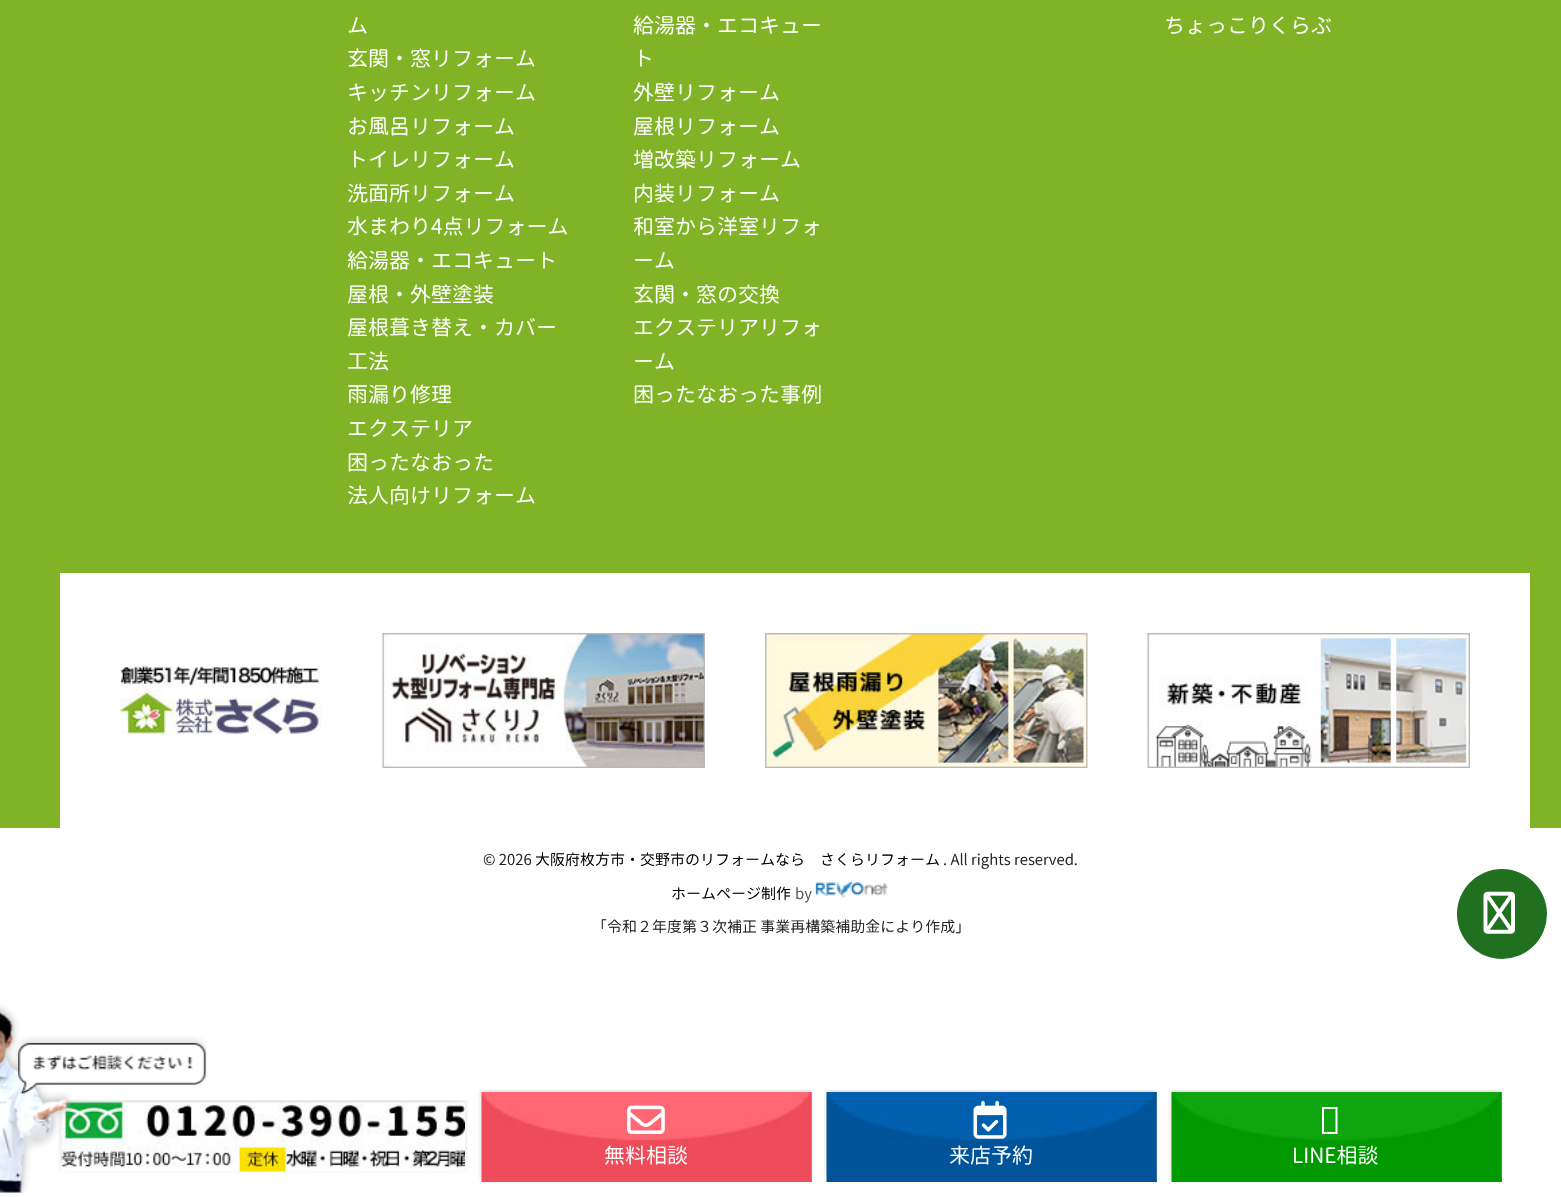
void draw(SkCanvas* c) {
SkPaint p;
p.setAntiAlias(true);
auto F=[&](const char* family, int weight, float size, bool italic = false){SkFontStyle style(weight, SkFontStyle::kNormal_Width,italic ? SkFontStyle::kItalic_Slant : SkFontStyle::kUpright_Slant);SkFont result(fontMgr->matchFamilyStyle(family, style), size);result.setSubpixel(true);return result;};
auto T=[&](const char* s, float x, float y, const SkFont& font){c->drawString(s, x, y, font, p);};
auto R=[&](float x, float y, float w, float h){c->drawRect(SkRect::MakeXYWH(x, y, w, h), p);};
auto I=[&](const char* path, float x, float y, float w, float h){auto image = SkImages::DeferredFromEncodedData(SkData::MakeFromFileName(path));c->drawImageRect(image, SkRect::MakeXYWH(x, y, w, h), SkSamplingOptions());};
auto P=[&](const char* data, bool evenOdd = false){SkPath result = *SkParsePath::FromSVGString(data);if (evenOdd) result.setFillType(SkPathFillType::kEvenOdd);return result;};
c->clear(0xffffffff);
p.setColor(0xff81b327);
R(0,0,1561,828);
auto f1 = F("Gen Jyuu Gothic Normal",300,21);
p.setColor(0xffffffff);
T("ム",347,33,f1);
T("玄関・窓リフォーム",347,66,f1);
T("キッチンリフォーム",347,100,f1);
T("お風呂リフォーム",347,134,f1);
T("トイレリフォーム",347,167,f1);
T("洗面所リフォーム",347,201,f1);
T("水まわり4点リフォーム",347,234,f1);
T("給湯器・エコキュート",347,268,f1);
T("屋根・外壁塗装",347,302,f1);
T("屋根葺き替え・カバー",347,335,f1);
T("工法",347,369,f1);
T("雨漏り修理",347,402,f1);
T("エクステリア",347,436,f1);
T("困ったなおった",347,470,f1);
T("法人向けリフォーム",347,503,f1);
T("給湯器・エコキュー",633,33,f1);
T("ト",633,66,f1);
T("外壁リフォーム",633,100,f1);
T("屋根リフォーム",633,134,f1);
T("増改築リフォーム",633,167,f1);
T("内装リフォーム",633,201,f1);
T("和室から洋室リフォ",633,234,f1);
T("ーム",633,268,f1);
T("玄関・窓の交換",633,302,f1);
T("エクステリアリフォ",633,335,f1);
T("ーム",633,369,f1);
T("困ったなおった事例",633,402,f1);
T("ちょっこりくらぶ",1164,33,f1);
R(60,573,1470,255);
I("1.png",120,666,201,69);
I("2.png",382,633,323,135);
I("3.png",765,633,323,135);
I("4.png",1147,633,323,135);
auto f2 = F("Gen Jyuu Gothic Normal",300,15);
p.setColor(0xff222222);
T("© 2026",483,865,f2);
p.setColor(0xff000000);
T("大阪府枚方市・交野市のリフォームなら　さくらリフォーム",535,865,f2);
p.setColor(0xff222222);
T(". All rights reserved.",943,865,f2);
p.setColor(0xff000000);
T("ホームページ制作",671,899,f2);
p.setColor(0xff555555);
T("by",795,899,f2);
I("5.png",815,882,74,16);
p.setColor(0xff222222);
T("「令和２年度第３次補正 事業再構築補助金により作成」",592,932,f2);
p.setColor(0xff207020);
c->drawCircle(1502,914,45,p);
I("6.png",1483,891,32,43);
I("8.png",58,1100,410,73);
I("7.png",0,1004,207,189);
p.setColor(0xffee4c5a);
R(811,1092,1,90);
I("9.png",478,1090,335,93);
I("10.png",627,1105,38,29);
p.setColor(0xffffffff);
T("無料相談",604,1163,f1);
p.setColor(0xff005499);
R(1156,1092,1,90);
I("11.png",824,1090,334,93);
I("12.png",973,1101,34,38);
p.setColor(0xffffffff);
T("来店予約",949,1163,f1);
p.setColor(0xff009900);
R(1501,1092,1,90);
I("13.png",1168,1090,335,93);
p.setColor(0xffffffff);
c->drawPath(P("M1322 1134v-27h15.5v27zm2-2h11.5v-23h-11.5z"),p);
T("LINE相談",1292,1163,f1);
}
